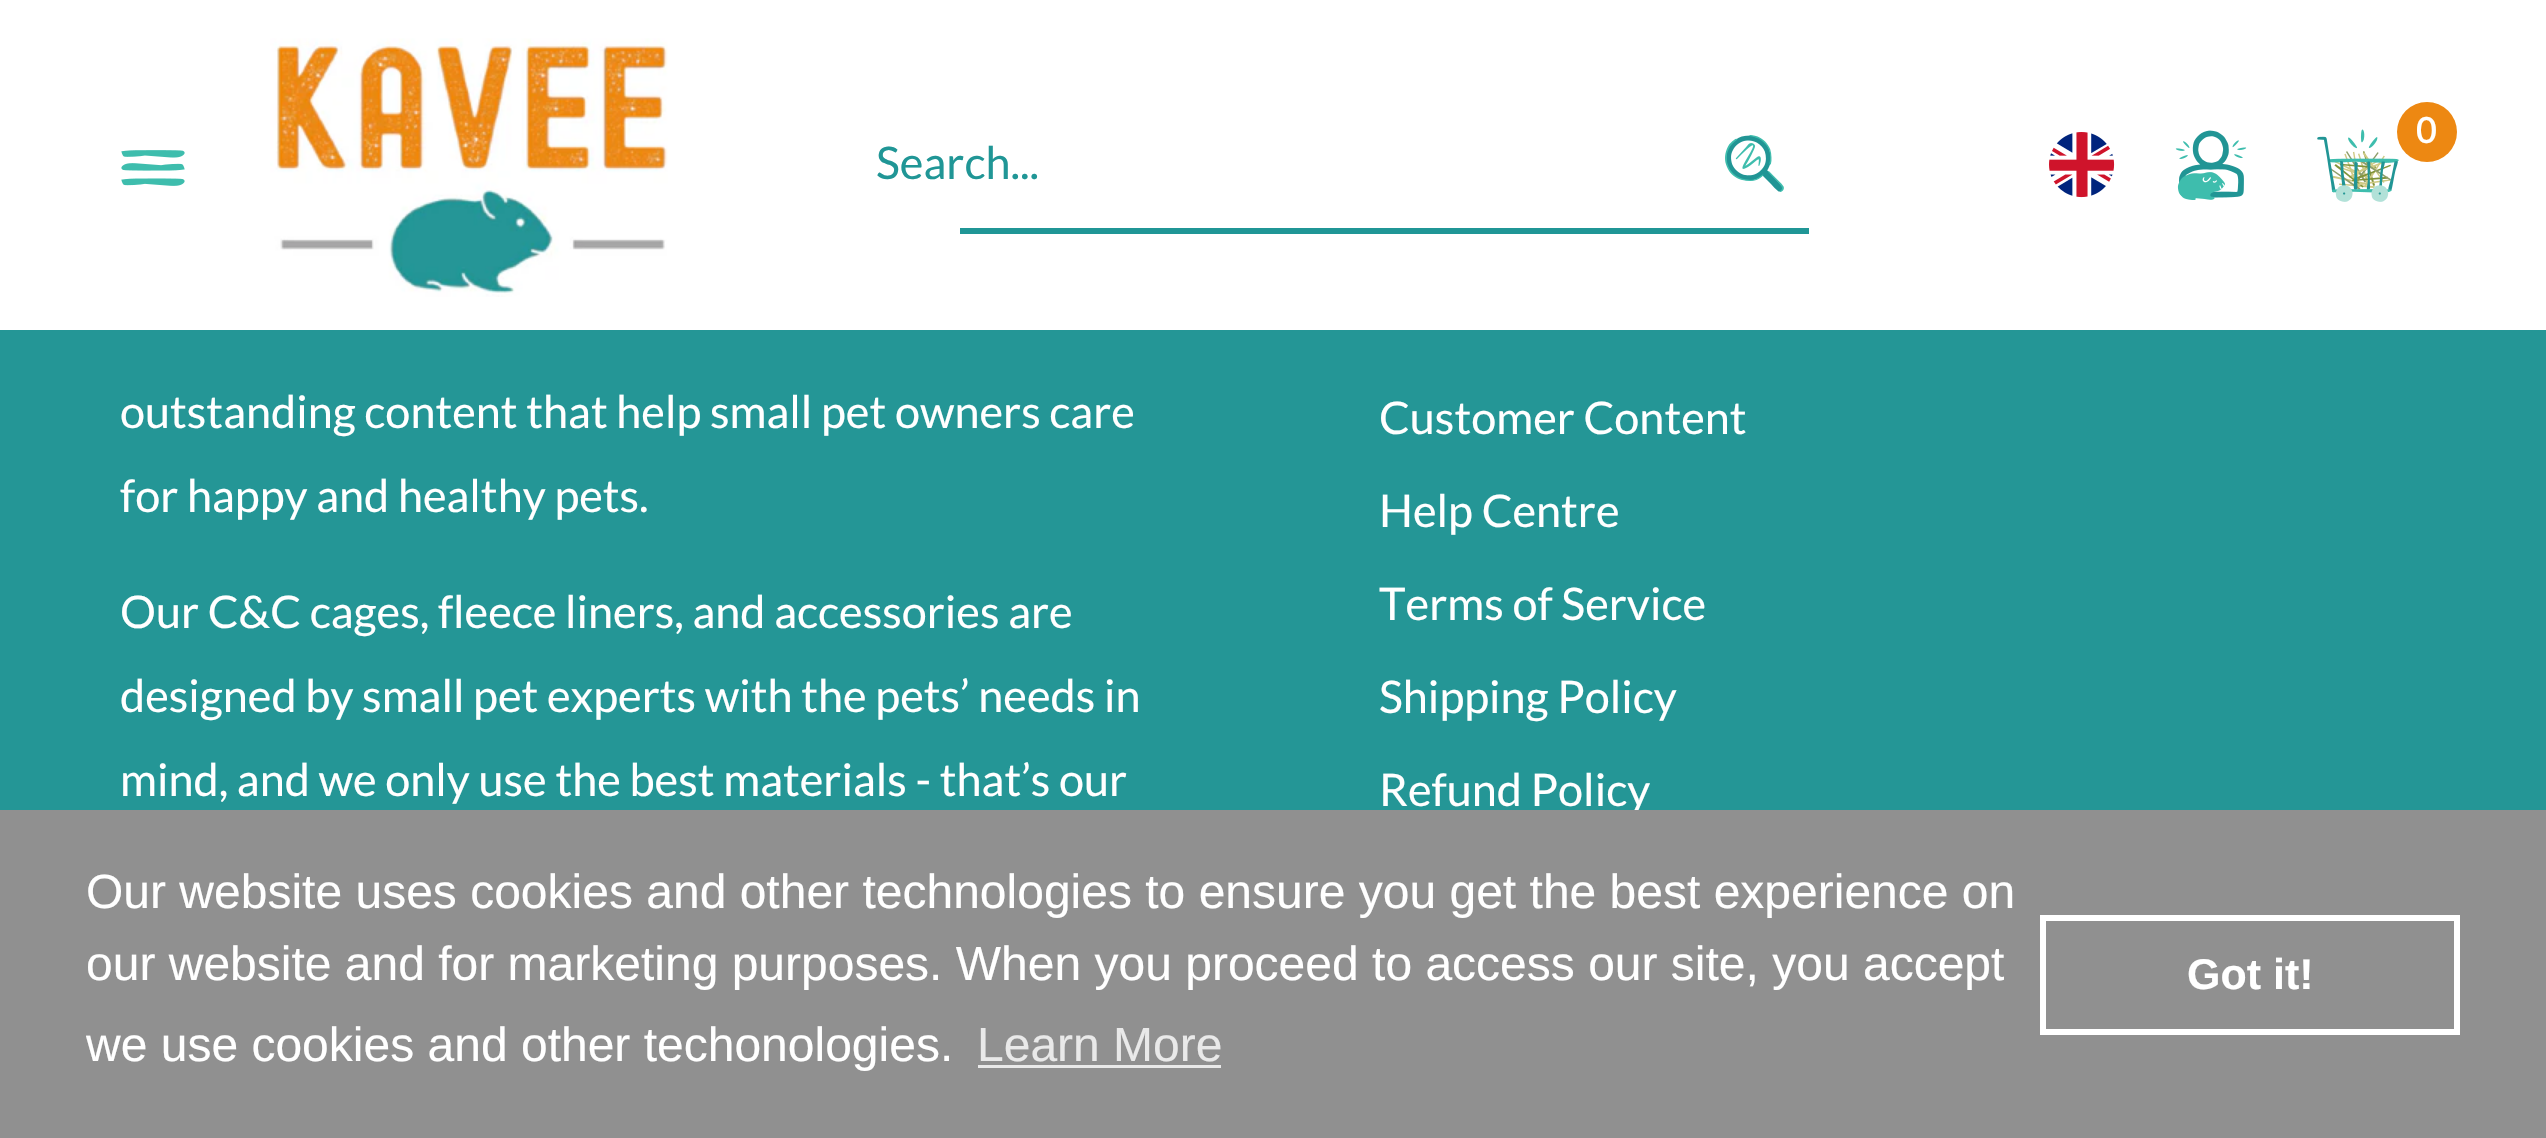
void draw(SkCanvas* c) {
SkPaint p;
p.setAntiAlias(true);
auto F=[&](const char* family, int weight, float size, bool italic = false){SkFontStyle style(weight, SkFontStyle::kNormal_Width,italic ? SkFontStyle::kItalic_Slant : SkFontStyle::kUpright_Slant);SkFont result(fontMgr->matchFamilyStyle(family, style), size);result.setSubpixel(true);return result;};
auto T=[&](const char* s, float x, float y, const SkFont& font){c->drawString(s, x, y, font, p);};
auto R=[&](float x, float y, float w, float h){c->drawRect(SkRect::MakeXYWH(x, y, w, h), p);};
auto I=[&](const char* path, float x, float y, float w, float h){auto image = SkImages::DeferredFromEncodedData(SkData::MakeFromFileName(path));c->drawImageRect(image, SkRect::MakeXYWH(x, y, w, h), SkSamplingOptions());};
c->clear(0xff249696);
p.setColor(0xffffffff);
R(0,0,2546,330);
I("1.png",270,38,398,259);
I("2.png",2049,132,66,66);
I("3.png",2175,130,72,70);
I("4.png",2317,129,82,73);
p.setColor(0xffed8812);
c->drawCircle(2427,132,30,p);
auto f1 = F("Lato",600,36);
p.setColor(0xffffffff);
T("0",2416,143,f1);
I("5.png",121,150,64,36);
p.setColor(0xff209696);
R(960,228,849,6);
auto f2 = F("Lato",400,45);
T("Search...",876,179,f2);
I("6.png",1725,135,59,57);
p.setColor(0xffffffff);
T("outstanding content that help small pet owners care",120,428,f2);
T("for happy and healthy pets.",120,512,f2);
T("Our C&C cages, fleece liners, and accessories are",120,628,f2);
T("designed by small pet experts with the pets’ needs in",120,712,f2);
T("mind, and we only use the best materials - that’s our",120,796,f2);
T("Customer Content",1379,434,f2);
T("Help Centre",1379,527,f2);
T("Terms of Service",1379,620,f2);
T("Shipping Policy",1379,713,f2);
T("Refund Policy",1379,806,f2);
p.setColor(0xff909090);
R(0,810,2546,328);
auto f3 = F("Liberation Sans",400,48);
p.setColor(0xffffffff);
T("Our website uses cookies and other technologies to ensure you get the best experience on",86,908,f3);
T("our website and for marketing purposes. When you proceed to access our site, you accept",86,980,f3);
T("we use cookies and other techonologies.",86,1061,f3);
p.setColor(0xffe9e9e9);
T("Learn More",977,1061,f3);
R(978,1065,243,3);
p.setStroke(true);
p.setStrokeWidth(6);
p.setColor(0xffffffff);
c->drawRect(SkRect::MakeXYWH(2043,918,414,114),p);
auto f4 = F("Liberation Sans",700,43);
p.setStroke(false);
T("Got it!",2187,989,f4);
}
